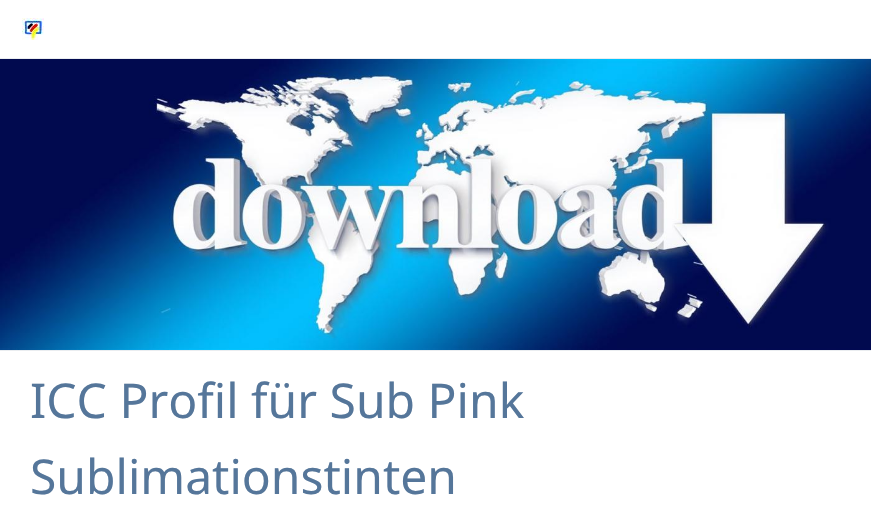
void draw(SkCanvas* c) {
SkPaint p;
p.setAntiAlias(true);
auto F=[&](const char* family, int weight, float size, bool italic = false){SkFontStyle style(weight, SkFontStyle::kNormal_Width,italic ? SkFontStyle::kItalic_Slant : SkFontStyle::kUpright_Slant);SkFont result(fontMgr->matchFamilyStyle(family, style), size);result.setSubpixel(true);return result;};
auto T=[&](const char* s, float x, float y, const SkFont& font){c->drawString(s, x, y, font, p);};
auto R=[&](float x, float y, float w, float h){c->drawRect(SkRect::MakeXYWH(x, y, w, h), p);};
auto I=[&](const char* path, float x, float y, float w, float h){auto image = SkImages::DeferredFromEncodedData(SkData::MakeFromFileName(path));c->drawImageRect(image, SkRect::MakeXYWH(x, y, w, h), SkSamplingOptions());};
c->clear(0xffffffff);
p.setColor(0xffeaedf0);
R(0,58,871,1);
I("1.png",22,18,22,22);
R(0,350,871,1);
I("2.png",0,59,871,291);
auto f1 = F("Noto Sans",400,48);
p.setColor(0xff55769a);
T("ICC Profil für Sub Pink",30,418,f1);
T("Sublimationstinten",30,494,f1);
}
